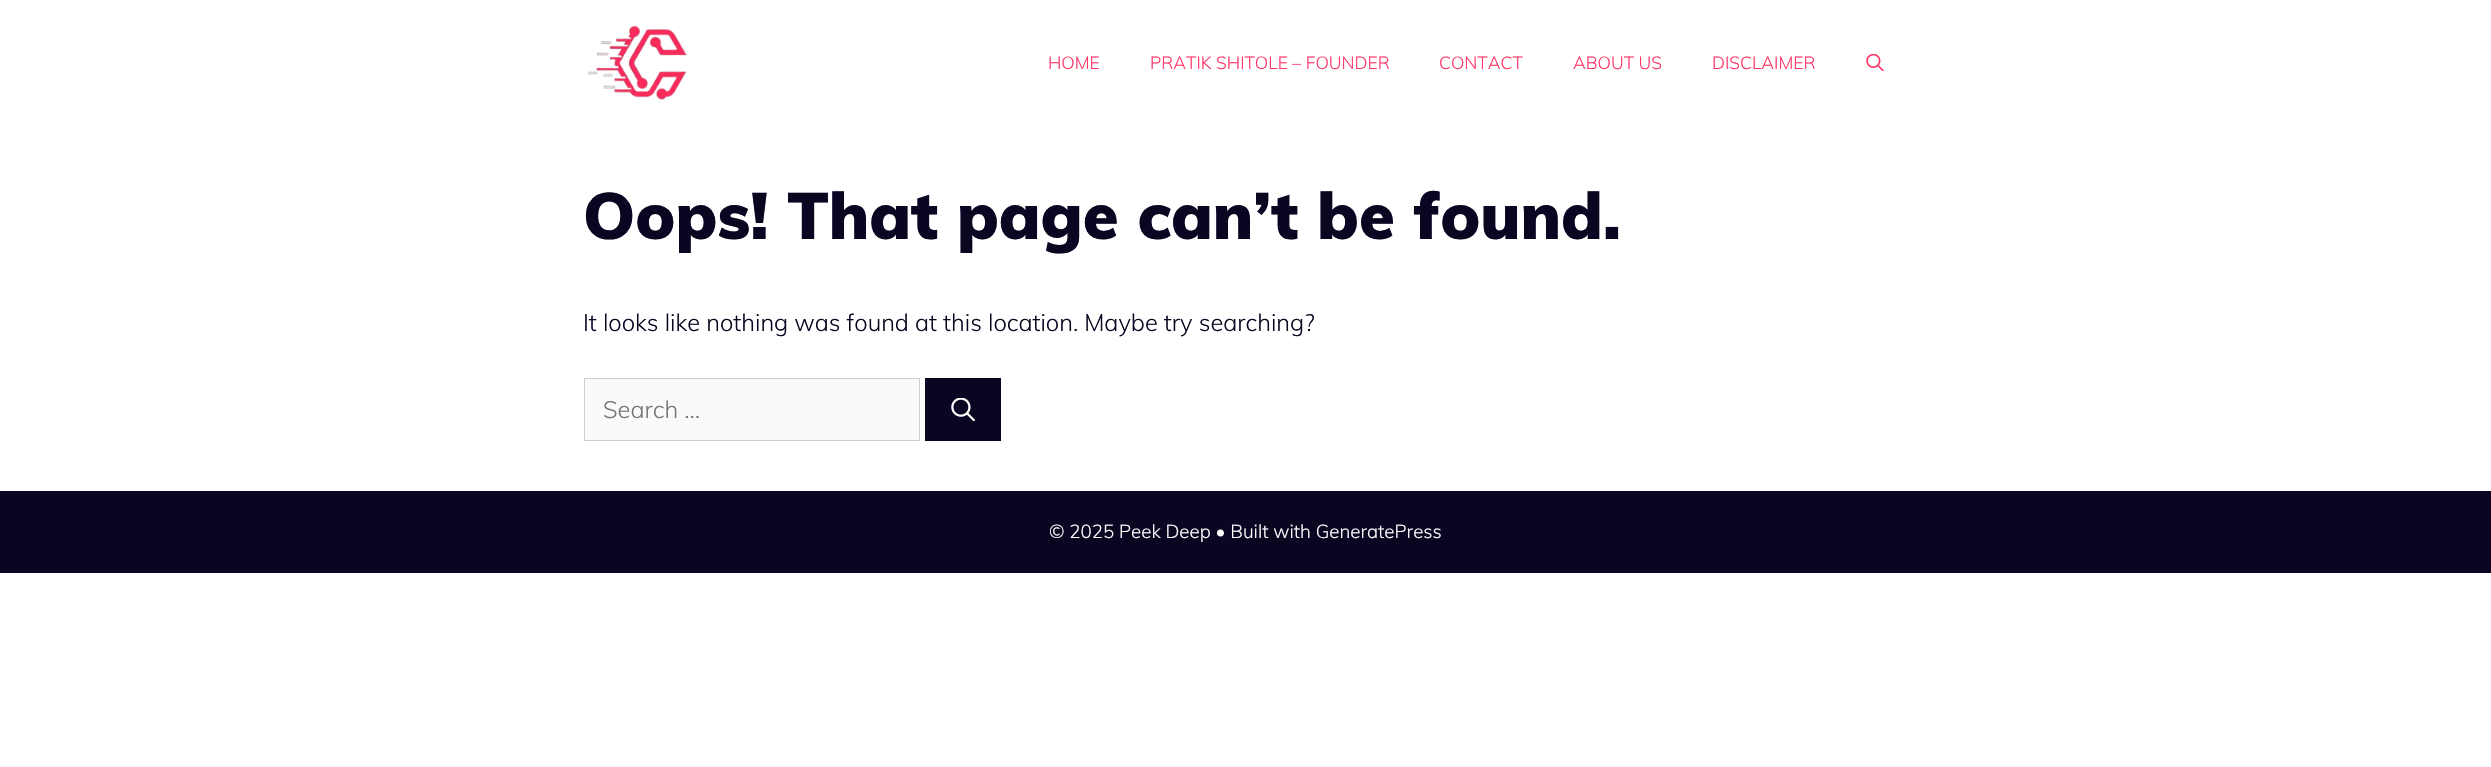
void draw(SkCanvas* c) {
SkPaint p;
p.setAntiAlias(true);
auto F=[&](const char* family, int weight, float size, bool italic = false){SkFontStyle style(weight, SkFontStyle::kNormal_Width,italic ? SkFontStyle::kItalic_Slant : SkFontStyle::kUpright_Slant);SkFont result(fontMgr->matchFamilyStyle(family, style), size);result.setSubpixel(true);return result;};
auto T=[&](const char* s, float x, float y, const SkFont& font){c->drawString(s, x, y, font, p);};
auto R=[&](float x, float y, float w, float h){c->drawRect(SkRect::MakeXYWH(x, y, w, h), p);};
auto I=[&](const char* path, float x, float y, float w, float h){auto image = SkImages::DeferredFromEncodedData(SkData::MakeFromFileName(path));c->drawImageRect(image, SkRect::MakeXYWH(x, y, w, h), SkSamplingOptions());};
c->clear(0xffffffff);
I("1.png",587,25,100,75);
auto f1 = F("Muli",300,17.5);
p.setColor(0xffff3366);
T("HOME",1048,69,f1);
T("PRATIK SHITOLE – FOUNDER",1150,69,f1);
T("CONTACT",1439,69,f1);
T("ABOUT US",1573,69,f1);
T("DISCLAIMER",1712,69,f1);
I("2.png",1866,54,18,17);
auto f2 = F("Muli",900,65);
p.setColor(0xff0b0521);
T("Oops! That page can’t be found.",583,239,f2);
auto f3 = F("Muli",300,23.75);
T("It looks like nothing was found at this location. Maybe try searching?",583,331,f3);
p.setColor(0xfffafafa);
c->drawRect(SkRect::MakeXYWH(584.5,378.5,335,62),p);
p.setStroke(true);
p.setStrokeWidth(1);
p.setColor(0xffcccccc);
c->drawRect(SkRect::MakeXYWH(584.5,378.5,335,62),p);
p.setStroke(false);
p.setColor(0xff757575);
T("Search …",603,418,f3);
p.setColor(0xff0b0521);
R(925,378,76,63);
I("3.png",951,398,24,23);
R(0,491,2491,82);
auto f4 = F("Muli",300,18.75);
p.setColor(0xffffffff);
T("© 2025 Peek Deep • Built with GeneratePress",1049,538,f4);
}
